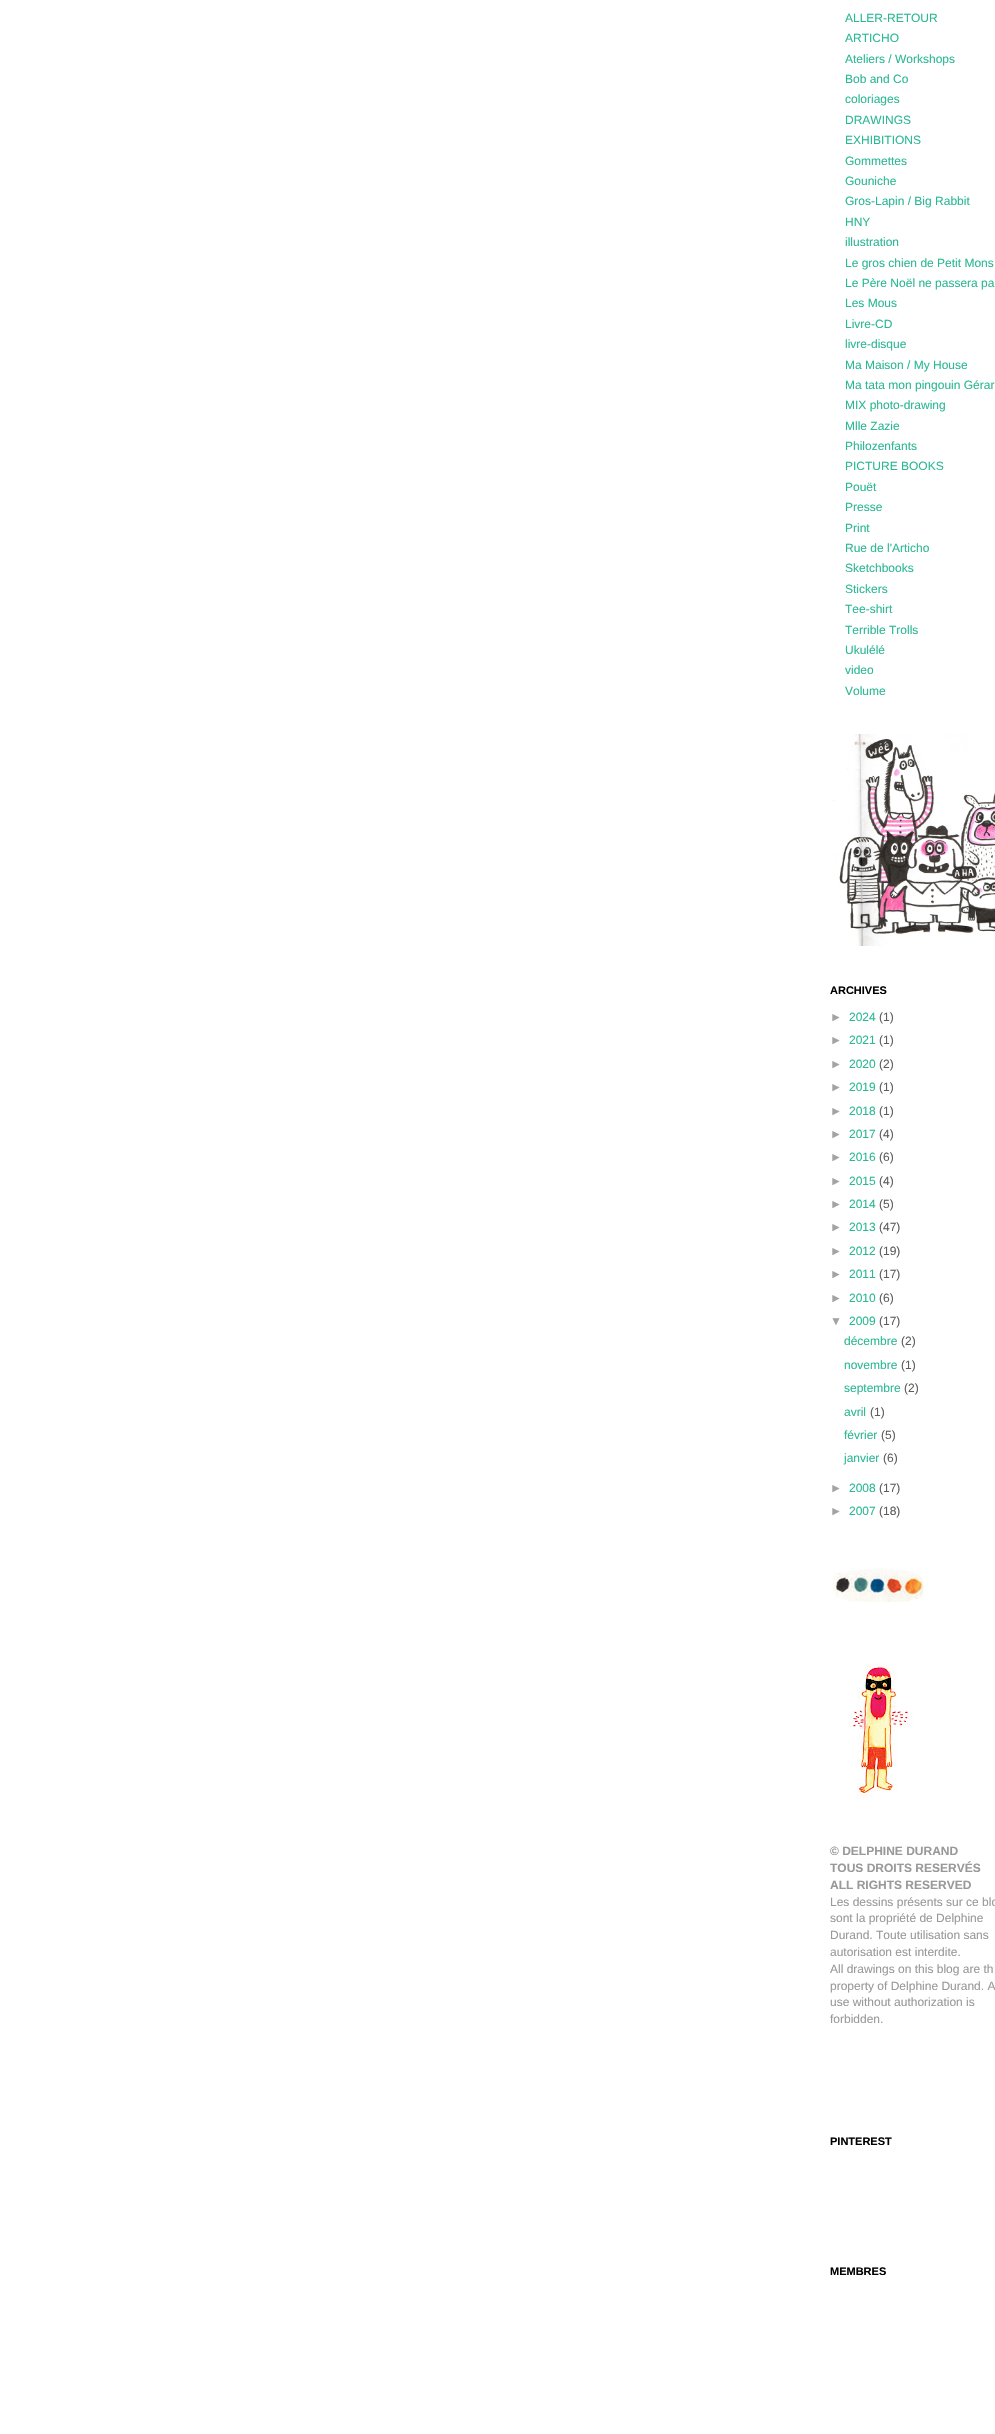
void draw(SkCanvas* c) {
SkPaint p;
p.setAntiAlias(true);
auto F=[&](const char* family, int weight, float size, bool italic = false){SkFontStyle style(weight, SkFontStyle::kNormal_Width,italic ? SkFontStyle::kItalic_Slant : SkFontStyle::kUpright_Slant);SkFont result(fontMgr->matchFamilyStyle(family, style), size);result.setSubpixel(true);return result;};
auto T=[&](const char* s, float x, float y, const SkFont& font){c->drawString(s, x, y, font, p);};
auto I=[&](const char* path, float x, float y, float w, float h){auto image = SkImages::DeferredFromEncodedData(SkData::MakeFromFileName(path));c->drawImageRect(image, SkRect::MakeXYWH(x, y, w, h), SkSamplingOptions());};
c->clear(0xffffffff);
auto f1 = F("Liberation Sans",400,12);
p.setColor(0xff2bb894);
T("ALLER-RETOUR",845,22,f1);
T("ARTICHO",845,42,f1);
T("Ateliers / Workshops",845,63,f1);
T("Bob and Co",845,83,f1);
T("coloriages",845,103,f1);
T("DRAWINGS",845,124,f1);
T("EXHIBITIONS",845,144,f1);
T("Gommettes",845,165,f1);
T("Gouniche",845,185,f1);
T("Gros-Lapin / Big Rabbit",845,205,f1);
T("HNY",845,226,f1);
T("illustration",845,246,f1);
T("Le gros chien de Petit Mons",845,267,f1);
T("Le Père Noël ne passera pa",845,287,f1);
T("Les Mous",845,307,f1);
T("Livre-CD",845,328,f1);
T("livre-disque",845,348,f1);
T("Ma Maison / My House",845,369,f1);
T("Ma tata mon pingouin Gérar",845,389,f1);
T("MIX photo-drawing",845,409,f1);
T("Mlle Zazie",845,430,f1);
T("Philozenfants",845,450,f1);
T("PICTURE BOOKS",845,470,f1);
T("Pouët",845,491,f1);
T("Presse",845,511,f1);
T("Print",845,532,f1);
T("Rue de l'Articho",845,552,f1);
T("Sketchbooks",845,572,f1);
T("Stickers",845,593,f1);
T("Tee-shirt",845,613,f1);
T("Terrible Trolls",845,634,f1);
T("Ukulélé",845,654,f1);
T("video",845,674,f1);
T("Volume",845,695,f1);
I("1.png",833,734,162,212);
auto f2 = F("Liberation Sans",700,11);
p.setColor(0xff000000);
T("ARCHIVES",830,994,f2);
p.setColor(0xffa3a3a3);
T("►",830,1021,f1);
p.setColor(0xff2bb894);
T("2024",849,1021,f1);
p.setColor(0xff5d5d5d);
T("(1)",879,1021,f1);
p.setColor(0xffa3a3a3);
T("►",830,1044,f1);
p.setColor(0xff2bb894);
T("2021",849,1044,f1);
p.setColor(0xff5d5d5d);
T("(1)",879,1044,f1);
p.setColor(0xffa3a3a3);
T("►",830,1068,f1);
p.setColor(0xff2bb894);
T("2020",849,1068,f1);
p.setColor(0xff5d5d5d);
T("(2)",879,1068,f1);
p.setColor(0xffa3a3a3);
T("►",830,1091,f1);
p.setColor(0xff2bb894);
T("2019",849,1091,f1);
p.setColor(0xff5d5d5d);
T("(1)",879,1091,f1);
p.setColor(0xffa3a3a3);
T("►",830,1115,f1);
p.setColor(0xff2bb894);
T("2018",849,1115,f1);
p.setColor(0xff5d5d5d);
T("(1)",879,1115,f1);
p.setColor(0xffa3a3a3);
T("►",830,1138,f1);
p.setColor(0xff2bb894);
T("2017",849,1138,f1);
p.setColor(0xff5d5d5d);
T("(4)",879,1138,f1);
p.setColor(0xffa3a3a3);
T("►",830,1161,f1);
p.setColor(0xff2bb894);
T("2016",849,1161,f1);
p.setColor(0xff5d5d5d);
T("(6)",879,1161,f1);
p.setColor(0xffa3a3a3);
T("►",830,1185,f1);
p.setColor(0xff2bb894);
T("2015",849,1185,f1);
p.setColor(0xff5d5d5d);
T("(4)",879,1185,f1);
p.setColor(0xffa3a3a3);
T("►",830,1208,f1);
p.setColor(0xff2bb894);
T("2014",849,1208,f1);
p.setColor(0xff5d5d5d);
T("(5)",879,1208,f1);
p.setColor(0xffa3a3a3);
T("►",830,1231,f1);
p.setColor(0xff2bb894);
T("2013",849,1231,f1);
p.setColor(0xff5d5d5d);
T("(47)",879,1231,f1);
p.setColor(0xffa3a3a3);
T("►",830,1255,f1);
p.setColor(0xff2bb894);
T("2012",849,1255,f1);
p.setColor(0xff5d5d5d);
T("(19)",879,1255,f1);
p.setColor(0xffa3a3a3);
T("►",830,1278,f1);
p.setColor(0xff2bb894);
T("2011",849,1278,f1);
p.setColor(0xff5d5d5d);
T("(17)",879,1278,f1);
p.setColor(0xffa3a3a3);
T("►",830,1302,f1);
p.setColor(0xff2bb894);
T("2010",849,1302,f1);
p.setColor(0xff5d5d5d);
T("(6)",879,1302,f1);
p.setColor(0xffa3a3a3);
T("▼",830,1325,f1);
p.setColor(0xff2bb894);
T("2009",849,1325,f1);
p.setColor(0xff5d5d5d);
T("(17)",879,1325,f1);
p.setColor(0xff2bb894);
T("décembre",844,1345,f1);
p.setColor(0xff5d5d5d);
T("(2)",901,1345,f1);
p.setColor(0xff2bb894);
T("novembre",844,1369,f1);
p.setColor(0xff5d5d5d);
T("(1)",901,1369,f1);
p.setColor(0xff2bb894);
T("septembre",844,1392,f1);
p.setColor(0xff5d5d5d);
T("(2)",904,1392,f1);
p.setColor(0xff2bb894);
T("avril",844,1416,f1);
p.setColor(0xff5d5d5d);
T("(1)",870,1416,f1);
p.setColor(0xff2bb894);
T("février",844,1439,f1);
p.setColor(0xff5d5d5d);
T("(5)",881,1439,f1);
p.setColor(0xff2bb894);
T("janvier",844,1462,f1);
p.setColor(0xff5d5d5d);
T("(6)",883,1462,f1);
p.setColor(0xffa3a3a3);
T("►",830,1492,f1);
p.setColor(0xff2bb894);
T("2008",849,1492,f1);
p.setColor(0xff5d5d5d);
T("(17)",879,1492,f1);
p.setColor(0xffa3a3a3);
T("►",830,1515,f1);
p.setColor(0xff2bb894);
T("2007",849,1515,f1);
p.setColor(0xff5d5d5d);
T("(18)",879,1515,f1);
I("2.png",833,1568,90,34);
I("3.png",849,1663,64,136);
auto f3 = F("Liberation Sans",700,12);
p.setColor(0xff999999);
T("© DELPHINE DURAND",830,1855,f3);
T("TOUS DROITS RESERVÉS",830,1872,f3);
T("ALL RIGHTS RESERVED",830,1889,f3);
T("Les dessins présents sur ce blo",830,1906,f1);
T("sont la propriété de Delphine",830,1922,f1);
T("Durand. Toute utilisation sans",830,1939,f1);
T("autorisation est interdite.",830,1956,f1);
T("All drawings on this blog are th",830,1973,f1);
T("property of Delphine Durand. A",830,1990,f1);
T("use without authorization is",830,2006,f1);
T("forbidden.",830,2023,f1);
p.setColor(0xff000000);
T("PINTEREST",830,2145,f2);
T("MEMBRES",830,2275,f2);
}
